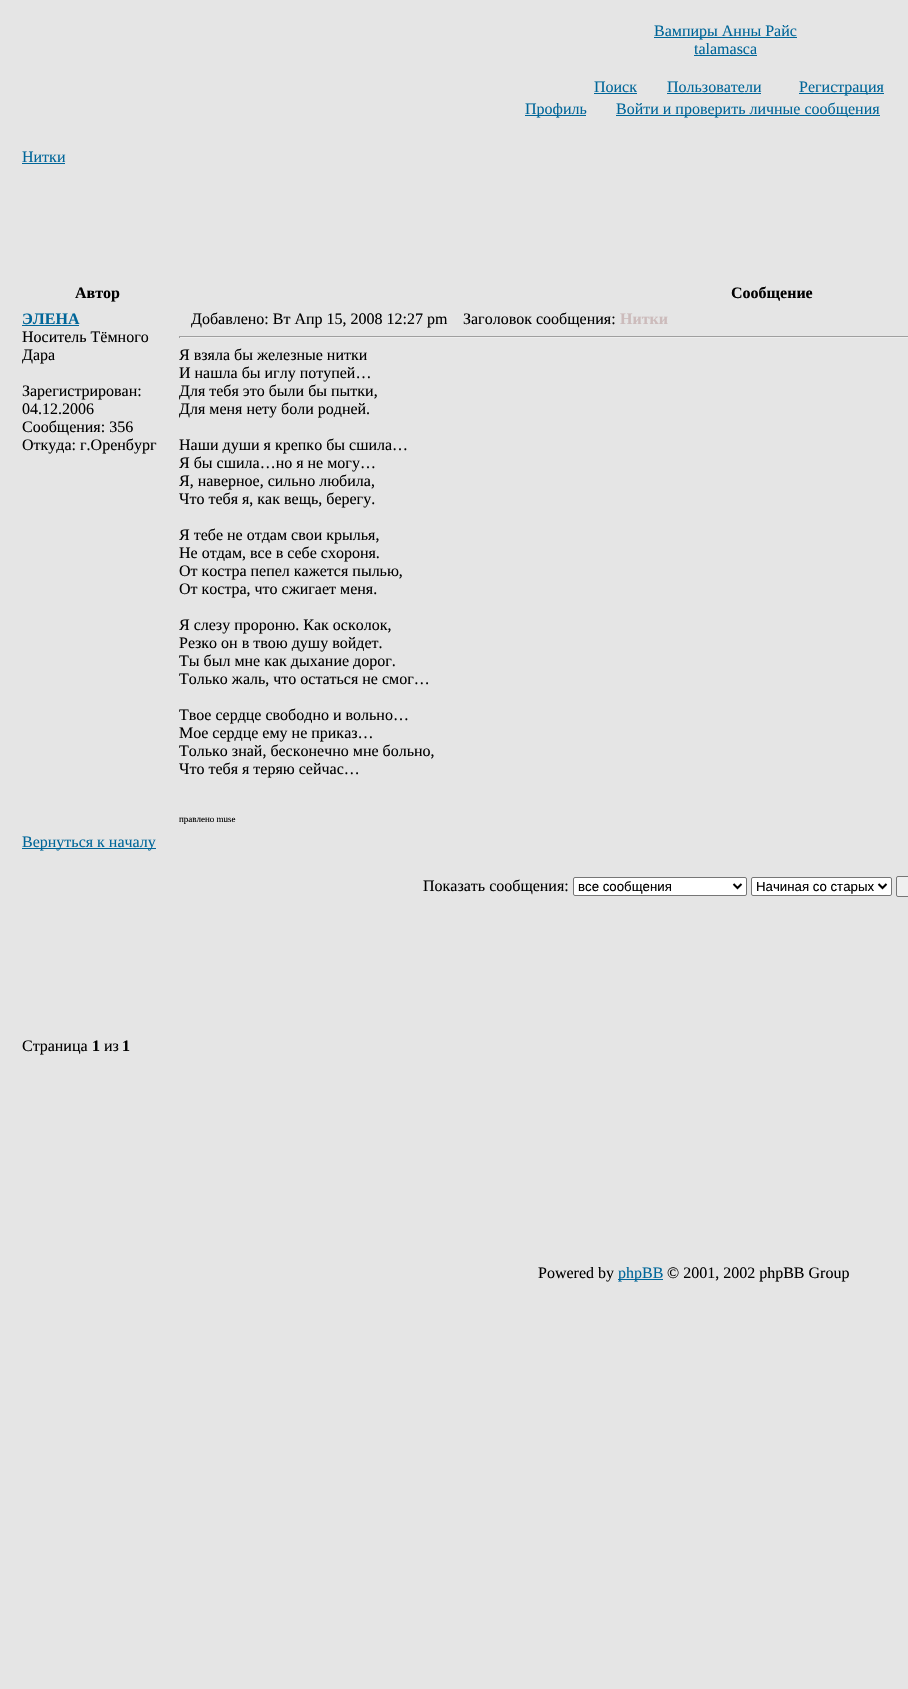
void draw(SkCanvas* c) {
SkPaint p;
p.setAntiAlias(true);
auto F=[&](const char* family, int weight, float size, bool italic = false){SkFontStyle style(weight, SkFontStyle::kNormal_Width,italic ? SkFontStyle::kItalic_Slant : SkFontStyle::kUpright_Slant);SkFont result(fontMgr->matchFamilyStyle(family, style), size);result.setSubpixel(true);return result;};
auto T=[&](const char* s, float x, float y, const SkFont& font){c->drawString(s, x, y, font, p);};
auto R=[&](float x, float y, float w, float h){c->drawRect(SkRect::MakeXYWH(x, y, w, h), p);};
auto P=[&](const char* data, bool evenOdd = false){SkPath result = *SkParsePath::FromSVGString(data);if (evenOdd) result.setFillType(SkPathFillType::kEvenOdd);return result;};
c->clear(0xffe5e5e5);
p.setColor(0xff006699);
R(654,37,143,1);
auto f1 = F("Liberation Serif",400,16);
T("Вампиры Анны Райс",654,36,f1);
T("talamasca",694,54,f1);
R(694,55,63,1);
T("Поиск",594,92,f1);
R(594,93,43,1);
T("Пользователи",667,92,f1);
R(667,93,94,1);
R(799,93,85,1);
T("Регистрация",799,92,f1);
R(525,115,61,1);
T("Профиль",525,114,f1);
R(616,115,264,1);
T("Войти и проверить личные сообщения",616,114,f1);
T("Нитки",22,162,f1);
R(22,163,43,1);
auto f2 = F("Liberation Serif",700,16);
p.setColor(0xff000000);
T("Автор",75,298,f2);
T("Сообщение",731,298,f2);
p.setColor(0xff006699);
T("ЭЛЕНА",22,324,f2);
R(22,325,57,1);
p.setColor(0xff000000);
T("Носитель Тёмного",22,342,f1);
T("Дара",22,360,f1);
T("Зарегистрирован:",22,396,f1);
T("04.12.2006",22,414,f1);
T("Сообщения: 356",22,432,f1);
T("Откуда: г.Оренбург",22,450,f1);
T("Добавлено: Вт Апр 15, 2008 12:27 pm",191,324,f1);
T("Заголовок сообщения:",463,324,f1);
p.setColor(0xffccbbbb);
T("Нитки",620,324,f2);
p.setColor(0xff9f9f9f);
R(179,336,729,1);
p.setColor(0xffeeeeee);
R(179,337,729,1);
p.setColor(0xff9f9f9f);
R(179,336,1,2);
p.setColor(0xff000000);
T("Я взяла бы железные нитки",179,360,f1);
T("И нашла бы иглу потупей…",179,378,f1);
T("Для тебя это были бы пытки,",179,396,f1);
T("Для меня нету боли родней.",179,414,f1);
T("Наши души я крепко бы сшила…",179,450,f1);
T("Я бы сшила…но я не могу…",179,468,f1);
T("Я, наверное, сильно любила,",179,486,f1);
T("Что тебя я, как вещь, берегу.",179,504,f1);
T("Я тебе не отдам свои крылья,",179,540,f1);
T("Не отдам, все в себе схороня.",179,558,f1);
T("От костра пепел кажется пылью,",179,576,f1);
T("От костра, что сжигает меня.",179,594,f1);
T("Я слезу пророню. Как осколок,",179,630,f1);
T("Резко он в твою душу войдет.",179,648,f1);
T("Ты был мне как дыхание дорог.",179,666,f1);
T("Только жаль, что остаться не смог…",179,684,f1);
T("Твое сердце свободно и вольно…",179,720,f1);
T("Мое сердце ему не приказ…",179,738,f1);
T("Только знай, бесконечно мне больно,",179,756,f1);
T("Что тебя я теряю сейчас…",179,774,f1);
auto f3 = F("Liberation Serif",400,9);
T("правлено muse",179,822,f3);
p.setColor(0xff006699);
R(22,848,134,1);
T("Вернуться к началу",22,847,f1);
p.setColor(0xff000000);
T("Показать сообщения:",423,891,f1);
p.setColor(0xffffffff);
c->drawRoundRect(SkRect::MakeXYWH(573.5,877.5,173,18),1.5,1.5,p);
p.setStroke(true);
p.setStrokeWidth(1);
p.setColor(0xff767676);
c->drawRoundRect(SkRect::MakeXYWH(573.5,877.5,173,18),1.5,1.5,p);
p.setStrokeWidth(2);
p.setColor(0xff000000);
c->drawPath(P("M733.5 884l4 4l4-4"),p);
auto f4 = F("Liberation Sans",400,13.25);
p.setStroke(false);
T("все сообщения",578,891,f4);
p.setColor(0xffffffff);
c->drawRoundRect(SkRect::MakeXYWH(751.5,877.5,140,18),1.5,1.5,p);
p.setStroke(true);
p.setStrokeWidth(1);
p.setColor(0xff767676);
c->drawRoundRect(SkRect::MakeXYWH(751.5,877.5,140,18),1.5,1.5,p);
p.setStrokeWidth(2);
p.setColor(0xff000000);
c->drawPath(P("M878.5 884l4 4l4-4"),p);
p.setStroke(false);
T("Начиная со старых",756,891,f4);
p.setColor(0xffefefef);
c->drawRoundRect(SkRect::MakeXYWH(896.5,876.5,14,20),1.5,1.5,p);
p.setStroke(true);
p.setStrokeWidth(1);
p.setColor(0xff767676);
c->drawRoundRect(SkRect::MakeXYWH(896.5,876.5,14,20),1.5,1.5,p);
p.setStroke(false);
p.setColor(0xff000000);
T("Страница",22,1051,f1);
T("1",92,1051,f2);
T("из",104,1051,f1);
T("1",122,1051,f2);
T("Powered by",538,1278,f1);
p.setColor(0xff006699);
R(618,1279,45,1);
T("phpBB",618,1278,f1);
p.setColor(0xff000000);
T("© 2001, 2002 phpBB Group",667,1278,f1);
}
